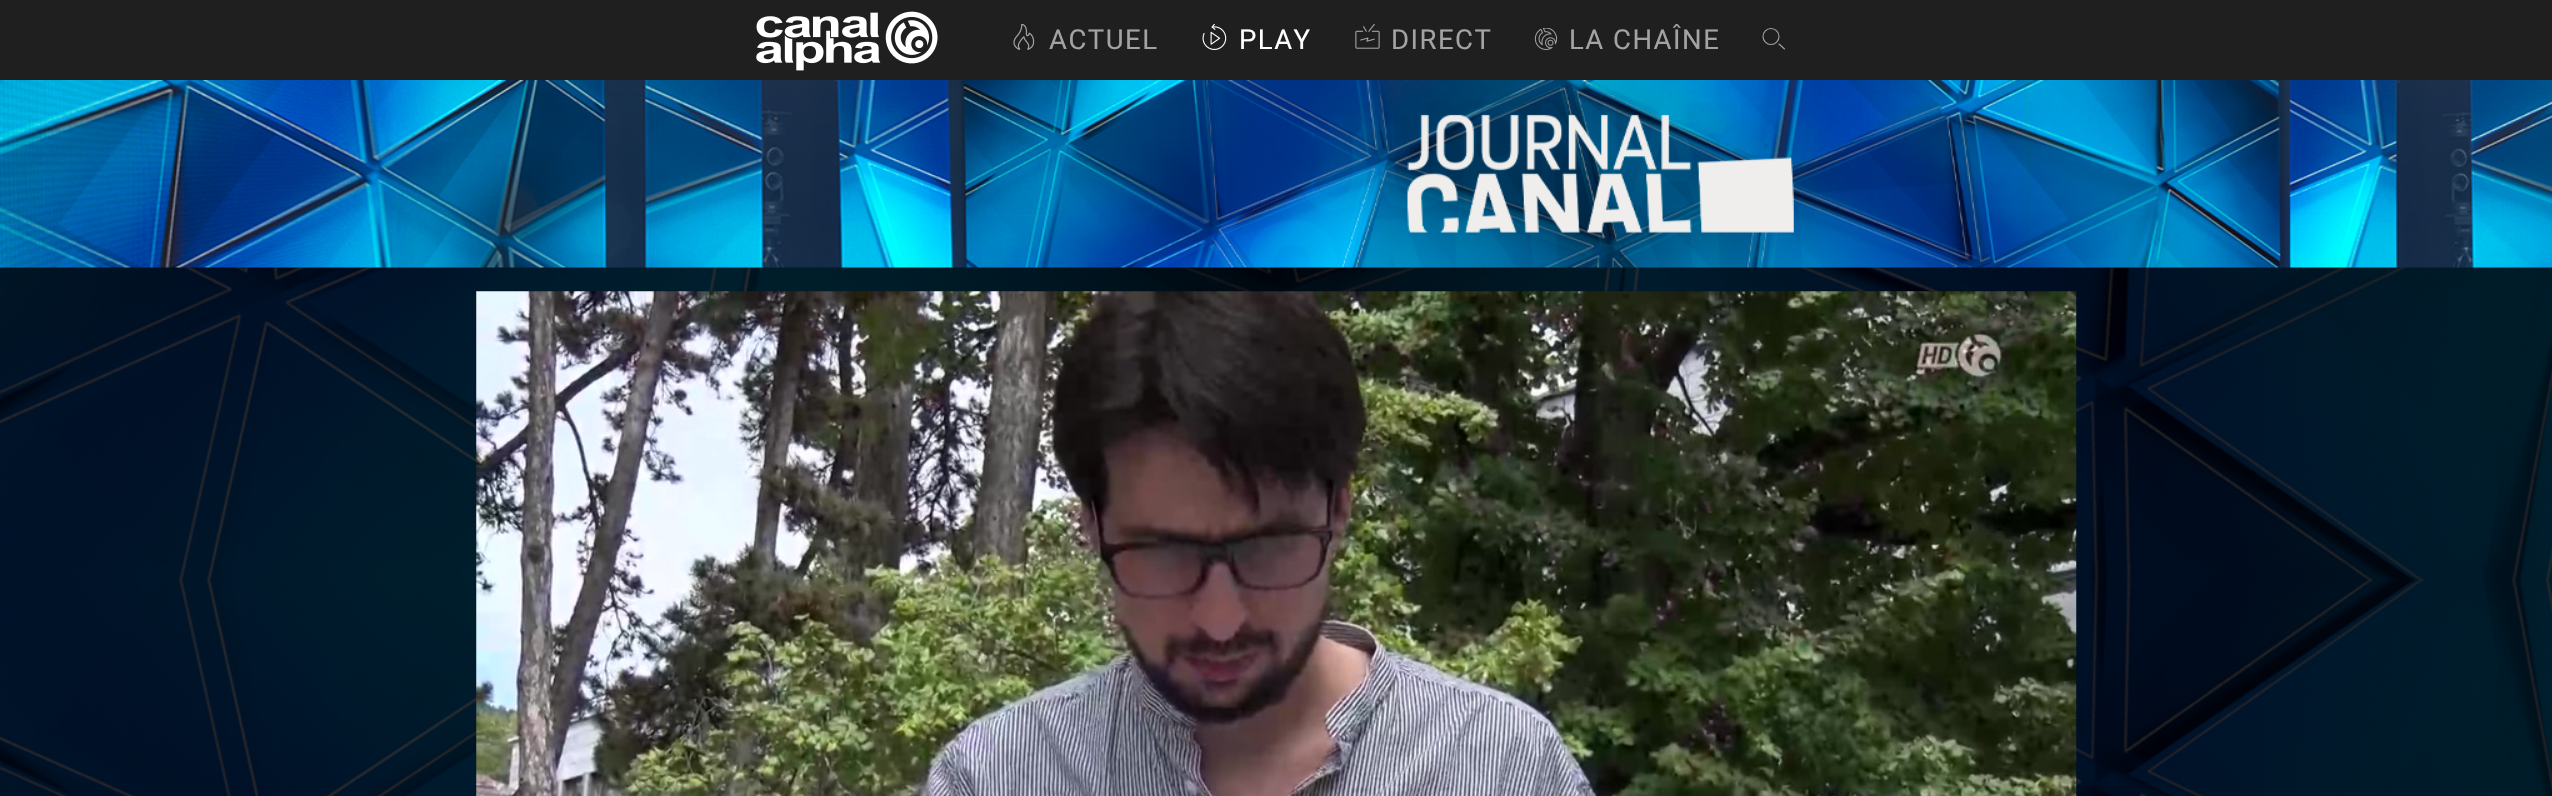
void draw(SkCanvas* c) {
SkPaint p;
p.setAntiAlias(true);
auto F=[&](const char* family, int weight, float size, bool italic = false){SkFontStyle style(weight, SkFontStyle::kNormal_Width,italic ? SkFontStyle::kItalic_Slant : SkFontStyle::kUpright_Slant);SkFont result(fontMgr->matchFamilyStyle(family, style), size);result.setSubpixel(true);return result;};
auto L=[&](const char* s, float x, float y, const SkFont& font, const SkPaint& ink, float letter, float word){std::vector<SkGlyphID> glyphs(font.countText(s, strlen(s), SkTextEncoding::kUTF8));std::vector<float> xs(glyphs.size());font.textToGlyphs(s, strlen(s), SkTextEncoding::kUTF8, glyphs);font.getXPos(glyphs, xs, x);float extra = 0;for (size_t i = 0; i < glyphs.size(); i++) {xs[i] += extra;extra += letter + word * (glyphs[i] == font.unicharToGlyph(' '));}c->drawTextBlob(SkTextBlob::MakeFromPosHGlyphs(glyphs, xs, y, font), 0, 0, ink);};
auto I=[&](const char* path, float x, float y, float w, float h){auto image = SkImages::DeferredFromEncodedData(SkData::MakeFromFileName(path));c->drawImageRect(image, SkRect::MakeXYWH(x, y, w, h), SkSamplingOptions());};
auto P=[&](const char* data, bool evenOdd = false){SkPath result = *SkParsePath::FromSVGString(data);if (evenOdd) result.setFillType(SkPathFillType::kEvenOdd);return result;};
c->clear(0xff1f1f1f);
I("1.png",756,11,182,60);
I("2.png",1013,24,22,26);
auto f1 = F("Roboto",400,27.5);
p.setColor(0xffa3a3a3);
L("ACTUEL",1049,49,f1,p,1.5,0);
I("3.png",1202,24,25,26);
p.setColor(0xffffffff);
L("PLAY",1239,49,f1,p,1.5,0);
I("4.png",1355,24,25,25);
p.setColor(0xffa3a3a3);
L("DIRECT",1391,49,f1,p,1.5,0);
I("5.png",1534,28,24,22);
L("LA CHAÎNE",1569,49,f1,p,1.5,0);
p.setStroke(true);
p.setStrokeWidth(1.1);
c->drawCircle(1771,36.5,8,p);
p.setStrokeCap(SkPaint::kRound_Cap);
p.setStrokeJoin(SkPaint::kRound_Join);
c->drawPath(P("M1779 44l5.5 5"),p);
I("6.png",0,267,2552,529);
I("7.png",0,80,2552,188);
I("8.png",476,291,1601,505);
}
